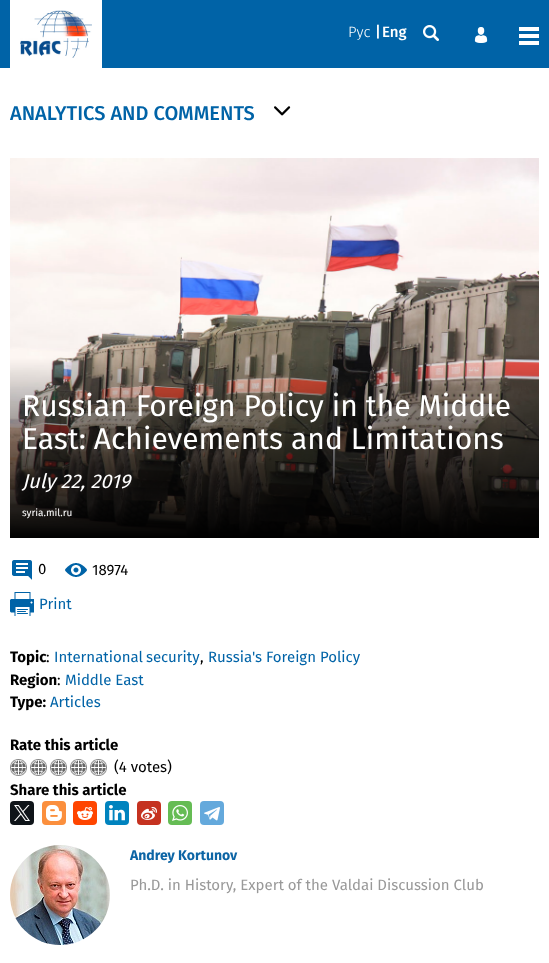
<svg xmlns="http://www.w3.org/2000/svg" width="549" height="963">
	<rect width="100%" height="100%" fill="#FFFFFF" />
	<rect x="0" y="0" width="549" height="68" fill="#0063A7" />
	<rect x="10" y="0" width="92" height="68" fill="#FFFFFF" />
	<image x="20" y="10" width="72" height="48" href="assets/img1.png" />
	<text x="348" y="37" font-family="Fira Sans" font-size="15" font-weight="300" fill="#FFFFFF">Рус</text>
	<g font-family="Fira Sans" font-size="15" font-weight="500" fill="#FFFFFF">
		<text x="375" y="37">|</text>
		<text x="382" y="37">Eng</text>
	</g>
	<image x="423" y="25" width="16" height="16" href="assets/img2.png" />
	<image x="474" y="27" width="14" height="16" href="assets/img3.png" />
	<rect x="519" y="34" width="20" height="4" fill="#FFFFFF" />
	<rect x="519" y="27" width="20" height="4" fill="#FFFFFF" />
	<rect x="519" y="41" width="20" height="4" fill="#FFFFFF" />
	<text x="10" y="120" font-family="Fira Sans" font-size="20" font-weight="500" fill="#0063A7">ANALYTICS AND COMMENTS</text>
	<image x="274" y="106" width="17" height="10" href="assets/img4.png" />
	<image x="10" y="158" width="529" height="380" href="assets/img5.png" />
	<g font-family="Fira Sans" font-size="30" fill="#FFFFFF">
		<text x="22" y="416">Russian Foreign Policy in the Middle</text>
		<text x="22" y="449">East: Achievements and Limitations</text>
	</g>
	<text x="22" y="488" font-family="Fira Sans" font-size="20" font-style="italic" fill="#FFFFFF">July 22, 2019</text>
	<text x="22" y="516" font-family="Fira Sans" font-size="10" fill="#FFFFFF">syria.mil.ru</text>
	<image x="12" y="560" width="20" height="20" href="assets/img6.png" />
	<text x="38" y="574" font-family="Fira Sans" font-size="15" fill="#000000">0</text>
	<image x="65" y="563" width="22" height="14" href="assets/img7.png" />
	<text x="92" y="575" font-family="Fira Sans" font-size="15" fill="#000000">18974</text>
	<image x="10" y="592" width="24" height="24" href="assets/img8.png" />
	<text x="39" y="609" font-family="Fira Sans" font-size="15" fill="#0063A7">Print</text>
	<text x="10" y="662" font-family="Fira Sans" font-size="15" font-weight="700" fill="#000000">Topic</text>
	<text x="46" y="662" font-family="Fira Sans" font-size="15" fill="#000000">:</text>
	<text x="54" y="662" word-spacing="-1" font-family="Fira Sans" font-size="15" fill="#0063A7">International security</text>
	<text x="200" y="662" font-family="Fira Sans" font-size="15" fill="#000000">,</text>
	<text x="208" y="662" font-family="Fira Sans" font-size="15" fill="#0063A7">Russia's Foreign Policy</text>
	<text x="10" y="685" font-family="Fira Sans" font-size="15" font-weight="700" fill="#000000">Region</text>
	<text x="57" y="685" font-family="Fira Sans" font-size="15" fill="#000000">:</text>
	<text x="65" y="685" font-family="Fira Sans" font-size="15" fill="#0063A7">Middle East</text>
	<text x="10" y="707" font-family="Fira Sans" font-size="15" font-weight="700" fill="#000000">Type:</text>
	<text x="50" y="707" font-family="Fira Sans" font-size="15" fill="#0063A7">Articles</text>
	<text x="10" y="750" font-family="Fira Sans" font-size="15" font-weight="700" fill="#000000">Rate this article</text>
	<image x="10" y="759" width="17" height="17" href="assets/img9.png" />
	<image x="30" y="759" width="17" height="17" href="assets/img9.png" />
	<image x="50" y="759" width="17" height="17" href="assets/img9.png" />
	<image x="70" y="759" width="17" height="17" href="assets/img9.png" />
	<image x="90" y="759" width="17" height="17" href="assets/img9.png" />
	<text x="114" y="772" font-family="Fira Sans" font-size="15" fill="#000000">(4 votes)</text>
	<text x="10" y="795" font-family="Fira Sans" font-size="15" font-weight="700" fill="#000000">Share this article</text>
	<rect x="10" y="801" width="24" height="24" rx="4" fill="#0F1419" />
	<image x="14" y="805" width="16" height="16" href="assets/img10.png" />
	<rect x="42" y="801" width="24" height="24" rx="4" fill="#FB8F3D" />
	<image x="46" y="805" width="16" height="16" href="assets/img11.png" />
	<rect x="73" y="801" width="24" height="24" rx="4" fill="#FF4500" />
	<image x="77" y="807" width="16" height="13" href="assets/img12.png" />
	<rect x="105" y="801" width="24" height="24" rx="4" fill="#0083BE" />
	<image x="109" y="805" width="16" height="16" href="assets/img13.png" />
	<rect x="137" y="801" width="24" height="24" rx="4" fill="#C53220" />
	<image x="141" y="807" width="16" height="13" href="assets/img14.png" />
	<rect x="168" y="801" width="24" height="24" rx="4" fill="#65BC54" />
	<image x="172" y="805" width="16" height="16" href="assets/img15.png" />
	<rect x="200" y="801" width="24" height="24" rx="4" fill="#64A9DC" />
	<image x="204" y="807" width="16" height="14" href="assets/img16.png" />
	<image x="10" y="845" width="100" height="100" href="assets/img17.png" />
	<text x="130" y="860" font-family="Fira Sans" font-size="14" font-weight="700" fill="#0D65A5">Andrey Kortunov</text>
	<text x="130" y="890" font-family="Fira Sans" font-size="15" fill="#999999">Ph.D. in History, Expert of the Valdai Discussion Club</text>
</svg>
